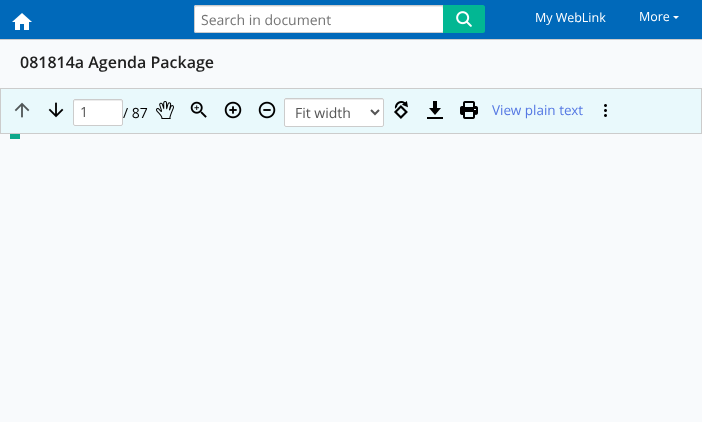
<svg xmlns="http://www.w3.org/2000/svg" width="702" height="422">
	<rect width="100%" height="100%" fill="#F8FAFC" />
	<rect x="0" y="0" width="702" height="39" fill="#0069BA" />
	<rect x="0" y="39" width="702" height="1" fill="#CCCCCC" />
	<image x="12" y="13" width="20" height="17" href="assets/img1.png" />
	<rect x="194" y="5" width="250" height="28" rx="2" fill="#FFFFFF" />
	<path d="M196 7H442L443 9V7C443 6 443 6 442 6H196C195 6 195 6 195 7V8Z" fill="#ECECEC" />
	<rect x="194.5" y="5.5" width="249" height="27" rx="1.5" fill="none" stroke="#CCCCCC" />
	<text x="201" y="25" font-family="Open Sans" font-size="14" fill="#757575">Search in document</text>
	<path d="M443 5H483C484 5 485 6 485 7V31C485 32 484 33 483 33H443Z" fill="#02B793" />
	<image x="456" y="11" width="16" height="16" href="assets/img2.png" />
	<g font-family="Open Sans" font-size="12.5" fill="#FFFFFF">
		<text x="535" y="22">My WebLink</text>
		<text x="639" y="21">More</text>
	</g>
	<path d="M673 16H679L676 19Z" fill="#FFFFFF" />
	<rect x="0" y="88" width="702" height="1" fill="#CCCCCC" />
	<text x="20" y="68" font-family="Open Sans" font-size="16" font-weight="600" fill="#202020">081814a Agenda Package</text>
	<rect x="1" y="89" width="700" height="44" fill="#E9F9FC" />
	<rect x="701" y="89" width="1" height="45" fill="#CCCCCC" />
	<rect x="0" y="133" width="702" height="1" fill="#CCCCCC" />
	<rect x="0" y="89" width="1" height="45" fill="#CCCCCC" />
	<image x="14" y="102" width="16" height="16" href="assets/img3.png" />
	<image x="48" y="102" width="16" height="16" href="assets/img4.png" />
	<rect x="73" y="99" width="50" height="27" rx="2" fill="#FFFFFF" />
	<path d="M75 101H116C122 101 122 100 122 106C122 98 123 100 113 100H83C79 100 74 98 74 102Z" fill="#ECECEC" />
	<rect x="73.5" y="99.5" width="49" height="26" rx="1.5" fill="none" stroke="#CCCCCC" />
	<text x="80" y="117" font-family="Open Sans" font-size="14" fill="#555555">1</text>
	<text x="123" y="118" font-family="Open Sans" font-size="14" fill="#000000">/ 87</text>
	<image x="156" y="101" width="18" height="18" href="assets/img5.png" />
	<image x="190" y="101" width="17" height="17" href="assets/img6.png" />
	<image x="224" y="101" width="18" height="18" href="assets/img7.png" />
	<image x="258" y="101" width="18" height="18" href="assets/img8.png" />
	<rect x="284" y="98" width="100" height="29" rx="2" fill="#FFFFFF" />
	<path d="M286 100H382C383 100 383 100 383 101C383 100 383 99 382 99H286C285 99 285 100 285 101C285 100 285 100 286 100Z" fill="#ECECEC" />
	<rect x="284.5" y="98.5" width="99" height="28" rx="1.5" fill="none" stroke="#CCCCCC" />
	<path d="M371 110L375 114L379 110" fill="none" stroke="#555555" stroke-width="2" />
	<text x="295" y="118" font-family="Open Sans" font-size="14" fill="#555555">Fit width</text>
	<image x="394" y="101" width="14" height="18" href="assets/img9.png" />
	<image x="427" y="101" width="16" height="18" href="assets/img10.png" />
	<image x="460" y="101" width="18" height="18" href="assets/img11.png" />
	<text x="492" y="115" font-family="Open Sans" font-size="13.5" fill="#5578E3">View plain text</text>
	<image x="604" y="104" width="3" height="13" href="assets/img12.png" />
	<rect x="10" y="134" width="10" height="5" fill="#0DA88B" />
</svg>
